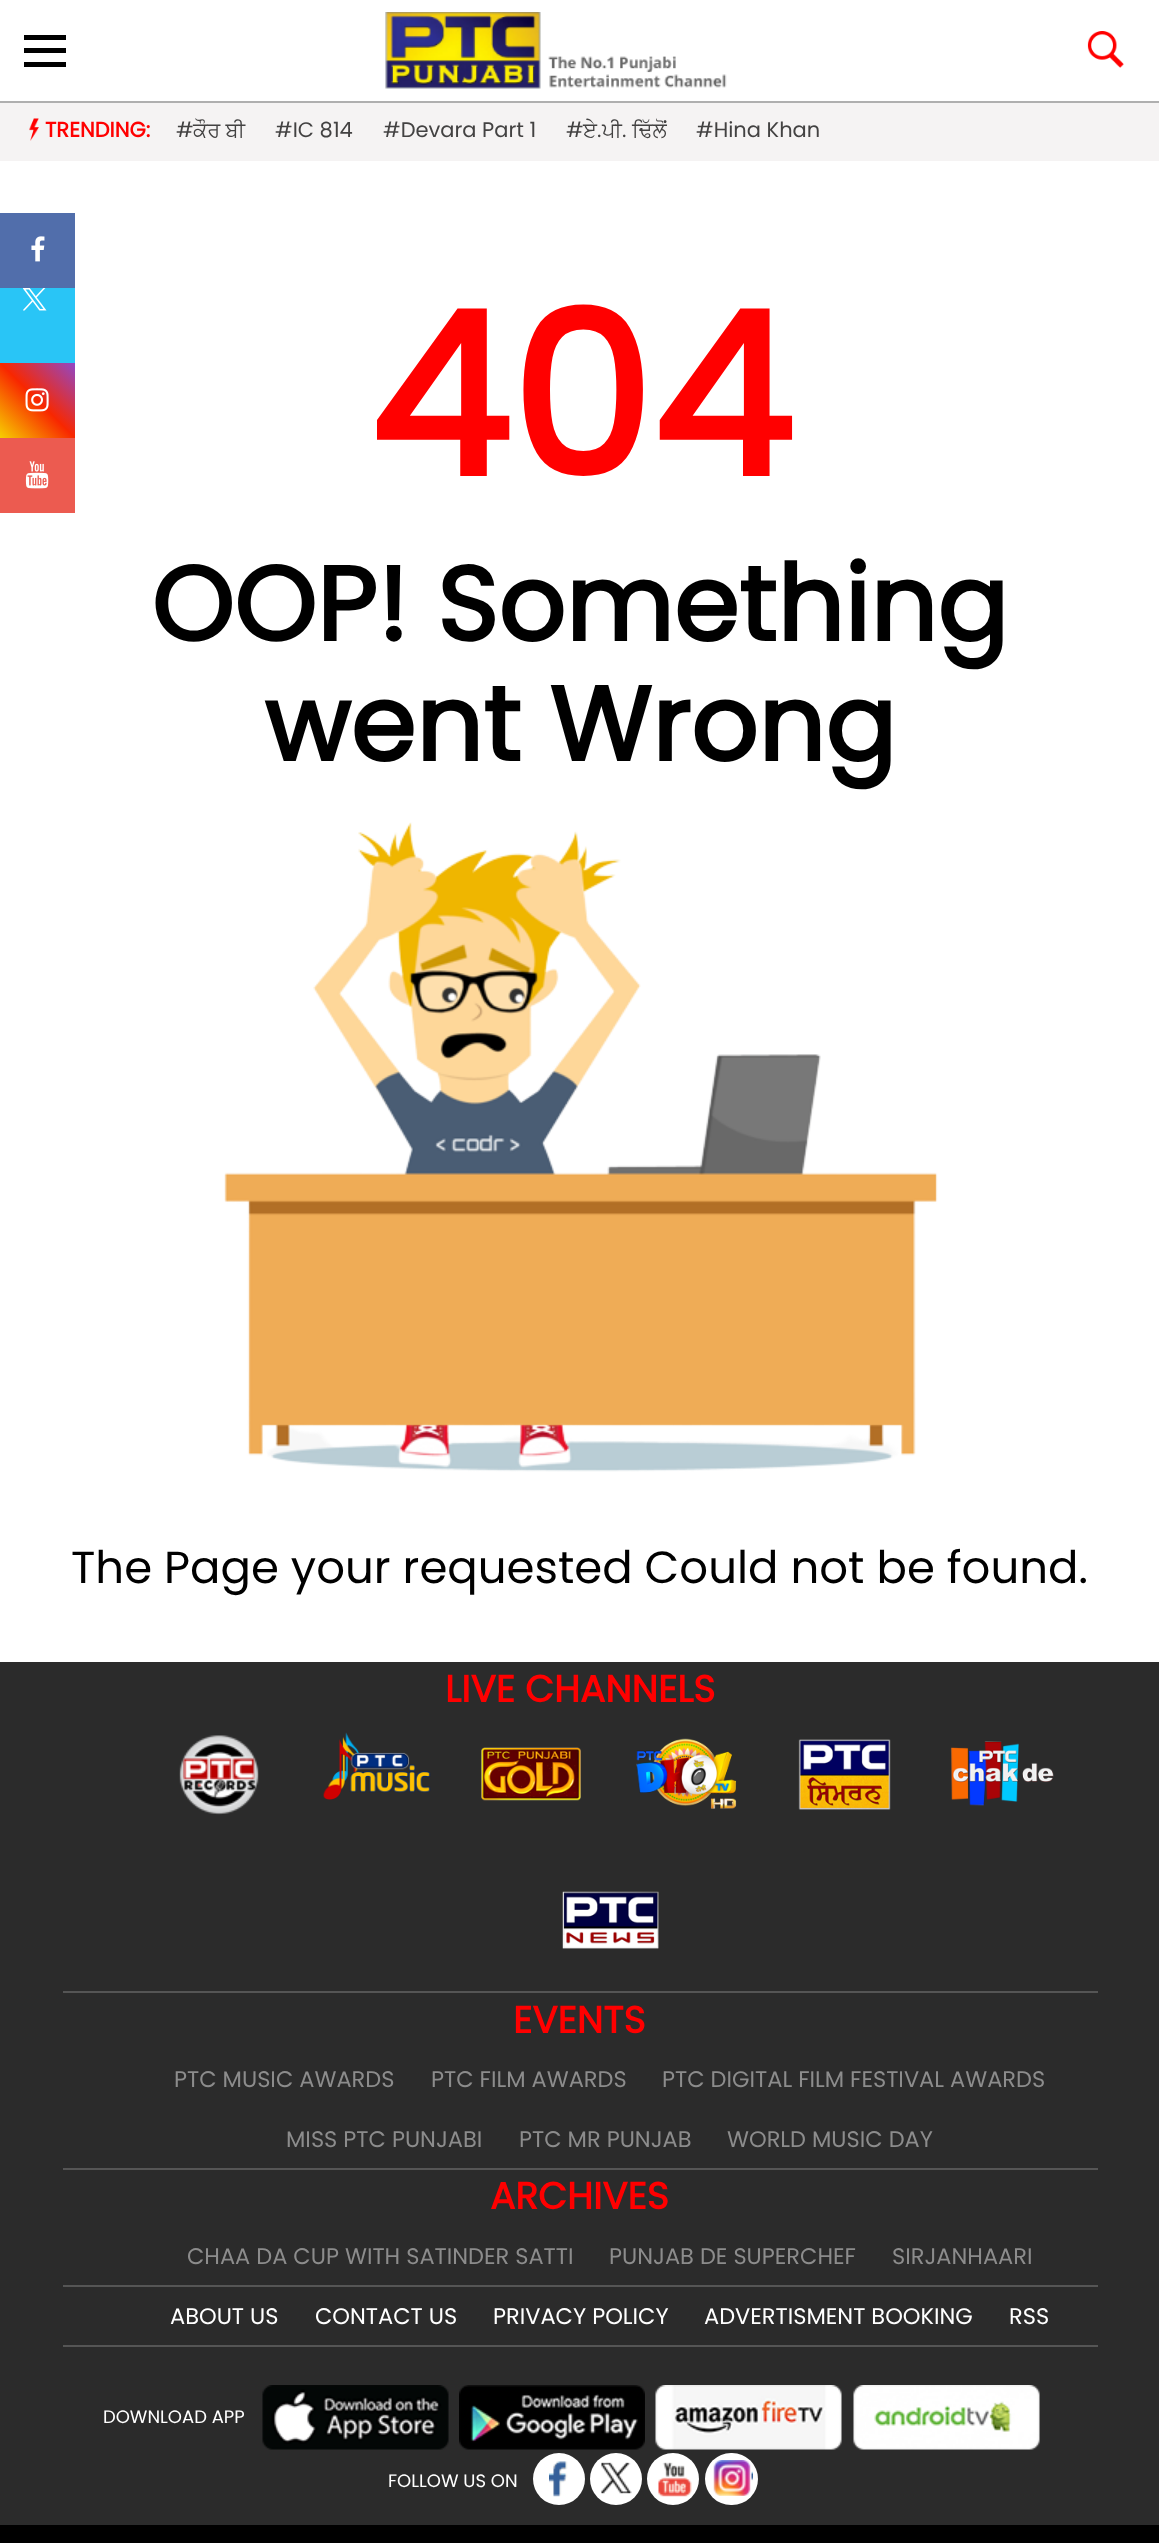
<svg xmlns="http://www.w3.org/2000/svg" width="1159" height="2543">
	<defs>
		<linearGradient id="g1" gradientUnits="userSpaceOnUse" x1="0" y1="438" x2="75" y2="363"><stop offset="0" stop-color="#F7CE00" /><stop offset="0.5" stop-color="#F82700" /><stop offset="1" stop-color="#9148C6" /></linearGradient>
	</defs>
	<rect width="100%" height="100%" fill="#FFFFFF" />
	<rect x="24" y="35" width="42" height="5" fill="#000000" />
	<rect x="24" y="48" width="42" height="5" fill="#000000" />
	<rect x="24" y="62" width="42" height="5" fill="#000000" />
	<image x="385" y="12" width="342" height="77" href="assets/img1.png" />
	<image x="1087" y="31" width="37" height="37" href="assets/img2.png" />
	<rect x="0" y="103" width="1159" height="58" fill="#F5F3F3" />
	<rect x="0" y="101" width="1159" height="2" fill="#AFAFAF" />
	<image x="29" y="118" width="10" height="23" href="assets/img3.png" />
	<text x="45" y="137" font-family="Poppins" font-size="21" font-weight="700" fill="#FF0000">TRENDING:</text>
	<text x="176" y="137" font-family="Poppins" font-size="21" fill="#434242">#</text>
	<text x="193" y="137" font-family="FreeSans" font-size="21" fill="#434242">ਕੌਰ ਬੀ</text>
	<g font-family="Poppins" font-size="21" fill="#434242">
		<text x="275" y="137">#IC 814</text>
		<text x="383" y="137">#Devara Part 1</text>
		<text x="566" y="137">#</text>
	</g>
	<text x="583" y="137" font-family="FreeSans" font-size="21" fill="#434242">ਏ</text>
	<text x="597" y="137" font-family="Poppins" font-size="21" fill="#434242">.</text>
	<text x="602" y="137" font-family="FreeSans" font-size="21" fill="#434242">ਪੀ</text>
	<text x="622" y="137" font-family="Poppins" font-size="21" fill="#434242">.</text>
	<text x="632" y="137" font-family="FreeSans" font-size="21" fill="#434242">ਢਿੱਲੋਂ</text>
	<text x="696" y="137" font-family="Poppins" font-size="21" fill="#434242">#Hina Khan</text>
	<rect x="0" y="213" width="75" height="75" fill="#516EAB" />
	<image x="31" y="236" width="14" height="26" href="assets/img4.png" />
	<rect x="0" y="288" width="75" height="75" fill="#29C5F6" />
	<image x="23" y="288" width="24" height="23" href="assets/img5.png" />
	<rect x="0" y="363" width="75" height="75" fill="url(#g1)" />
	<image x="25" y="388" width="24" height="24" href="assets/img6.png" />
	<rect x="0" y="438" width="75" height="75" fill="#EC5B50" />
	<image x="25" y="461" width="24" height="28" href="assets/img7.png" />
	<text x="368" y="476" font-family="Poppins" font-size="225" font-weight="700" fill="#FF0000">404</text>
	<g font-family="Poppins" font-size="105" font-weight="700" fill="#000000">
		<text x="151" y="641">OOP! Something</text>
		<text x="264" y="761">went Wrong</text>
	</g>
	<image x="224" y="822" width="714" height="650" href="assets/img8.png" />
	<text x="71" y="1583" font-family="Poppins" font-size="45" fill="#000000">The Page your requested Could not be found.</text>
	<rect x="0" y="1662" width="1159" height="863" fill="#2B2B2B" />
	<text x="445" y="1702" font-family="Poppins" font-size="37.5" font-weight="700" fill="#FF0000">LIVE CHANNELS</text>
	<rect x="63" y="1991" width="1035" height="2" fill="#555555" />
	<image x="179" y="1735" width="80" height="80" href="assets/img9.png" />
	<image x="323" y="1732" width="108" height="68" href="assets/img10.png" />
	<image x="481" y="1747" width="100" height="54" href="assets/img11.png" />
	<image x="636" y="1738" width="101" height="71" href="assets/img12.png" />
	<image x="798" y="1739" width="93" height="71" href="assets/img13.png" />
	<image x="950" y="1741" width="104" height="65" href="assets/img14.png" />
	<image x="562" y="1891" width="97" height="58" href="assets/img15.png" />
	<text x="513" y="2033" font-family="Poppins" font-size="37.5" font-weight="700" fill="#FF0000">EVENTS</text>
	<rect x="63" y="2168" width="1035" height="2" fill="#555555" />
	<g font-family="Poppins" font-size="22.5" fill="#8C8C8C">
		<text x="174" y="2087">PTC MUSIC AWARDS</text>
		<text x="431" y="2087">PTC FILM AWARDS</text>
		<text x="662" y="2087">PTC DIGITAL FILM FESTIVAL AWARDS</text>
		<text x="286" y="2147">MISS PTC PUNJABI</text>
		<text x="519" y="2147">PTC MR PUNJAB</text>
		<text x="727" y="2147">WORLD MUSIC DAY</text>
	</g>
	<text x="490" y="2209" font-family="Poppins" font-size="37.5" font-weight="700" fill="#FF0000">ARCHIVES</text>
	<rect x="63" y="2285" width="1035" height="2" fill="#555555" />
	<g font-family="Poppins" font-size="22.5" fill="#8C8C8C">
		<text x="187" y="2264">CHAA DA CUP WITH SATINDER SATTI</text>
		<text x="609" y="2264">PUNJAB DE SUPERCHEF</text>
		<text x="892" y="2264">SIRJANHAARI</text>
	</g>
	<rect x="63" y="2345" width="1035" height="2" fill="#555555" />
	<g font-family="Poppins" font-size="22.5" fill="#FFFFFF">
		<text x="170" y="2324">ABOUT US</text>
		<text x="315" y="2324">CONTACT US</text>
		<text x="493" y="2324">PRIVACY POLICY</text>
		<text x="704" y="2324">ADVERTISMENT BOOKING</text>
		<text x="1009" y="2324">RSS</text>
	</g>
	<text x="103" y="2423" font-family="Poppins" font-size="18" fill="#FFFFFF">DOWNLOAD APP</text>
	<image x="262" y="2385" width="187" height="65" href="assets/img16.png" />
	<image x="459" y="2385" width="186" height="65" href="assets/img17.png" />
	<image x="655" y="2385" width="187" height="65" href="assets/img18.png" />
	<image x="853" y="2385" width="187" height="65" href="assets/img19.png" />
	<text x="388" y="2487" font-family="Poppins" font-size="18" fill="#FFFFFF">FOLLOW US ON</text>
	<circle cx="559" cy="2479" r="26" fill="#FFFFFF" />
	<image x="549" y="2461" width="19" height="36" href="assets/img20.png" />
	<circle cx="616" cy="2479" r="26" fill="#FFFFFF" />
	<image x="601" y="2462" width="31" height="32" href="assets/img21.png" />
	<circle cx="673" cy="2479" r="26" fill="#FFFFFF" />
	<image x="658" y="2462" width="34" height="35" href="assets/img22.png" />
	<rect x="705" y="2453" width="53" height="52" rx="26" fill="#FFFFFF" />
	<image x="713" y="2460" width="40" height="36" href="assets/img23.png" />
	<rect x="0" y="2525" width="1159" height="18" fill="#000000" />
</svg>
